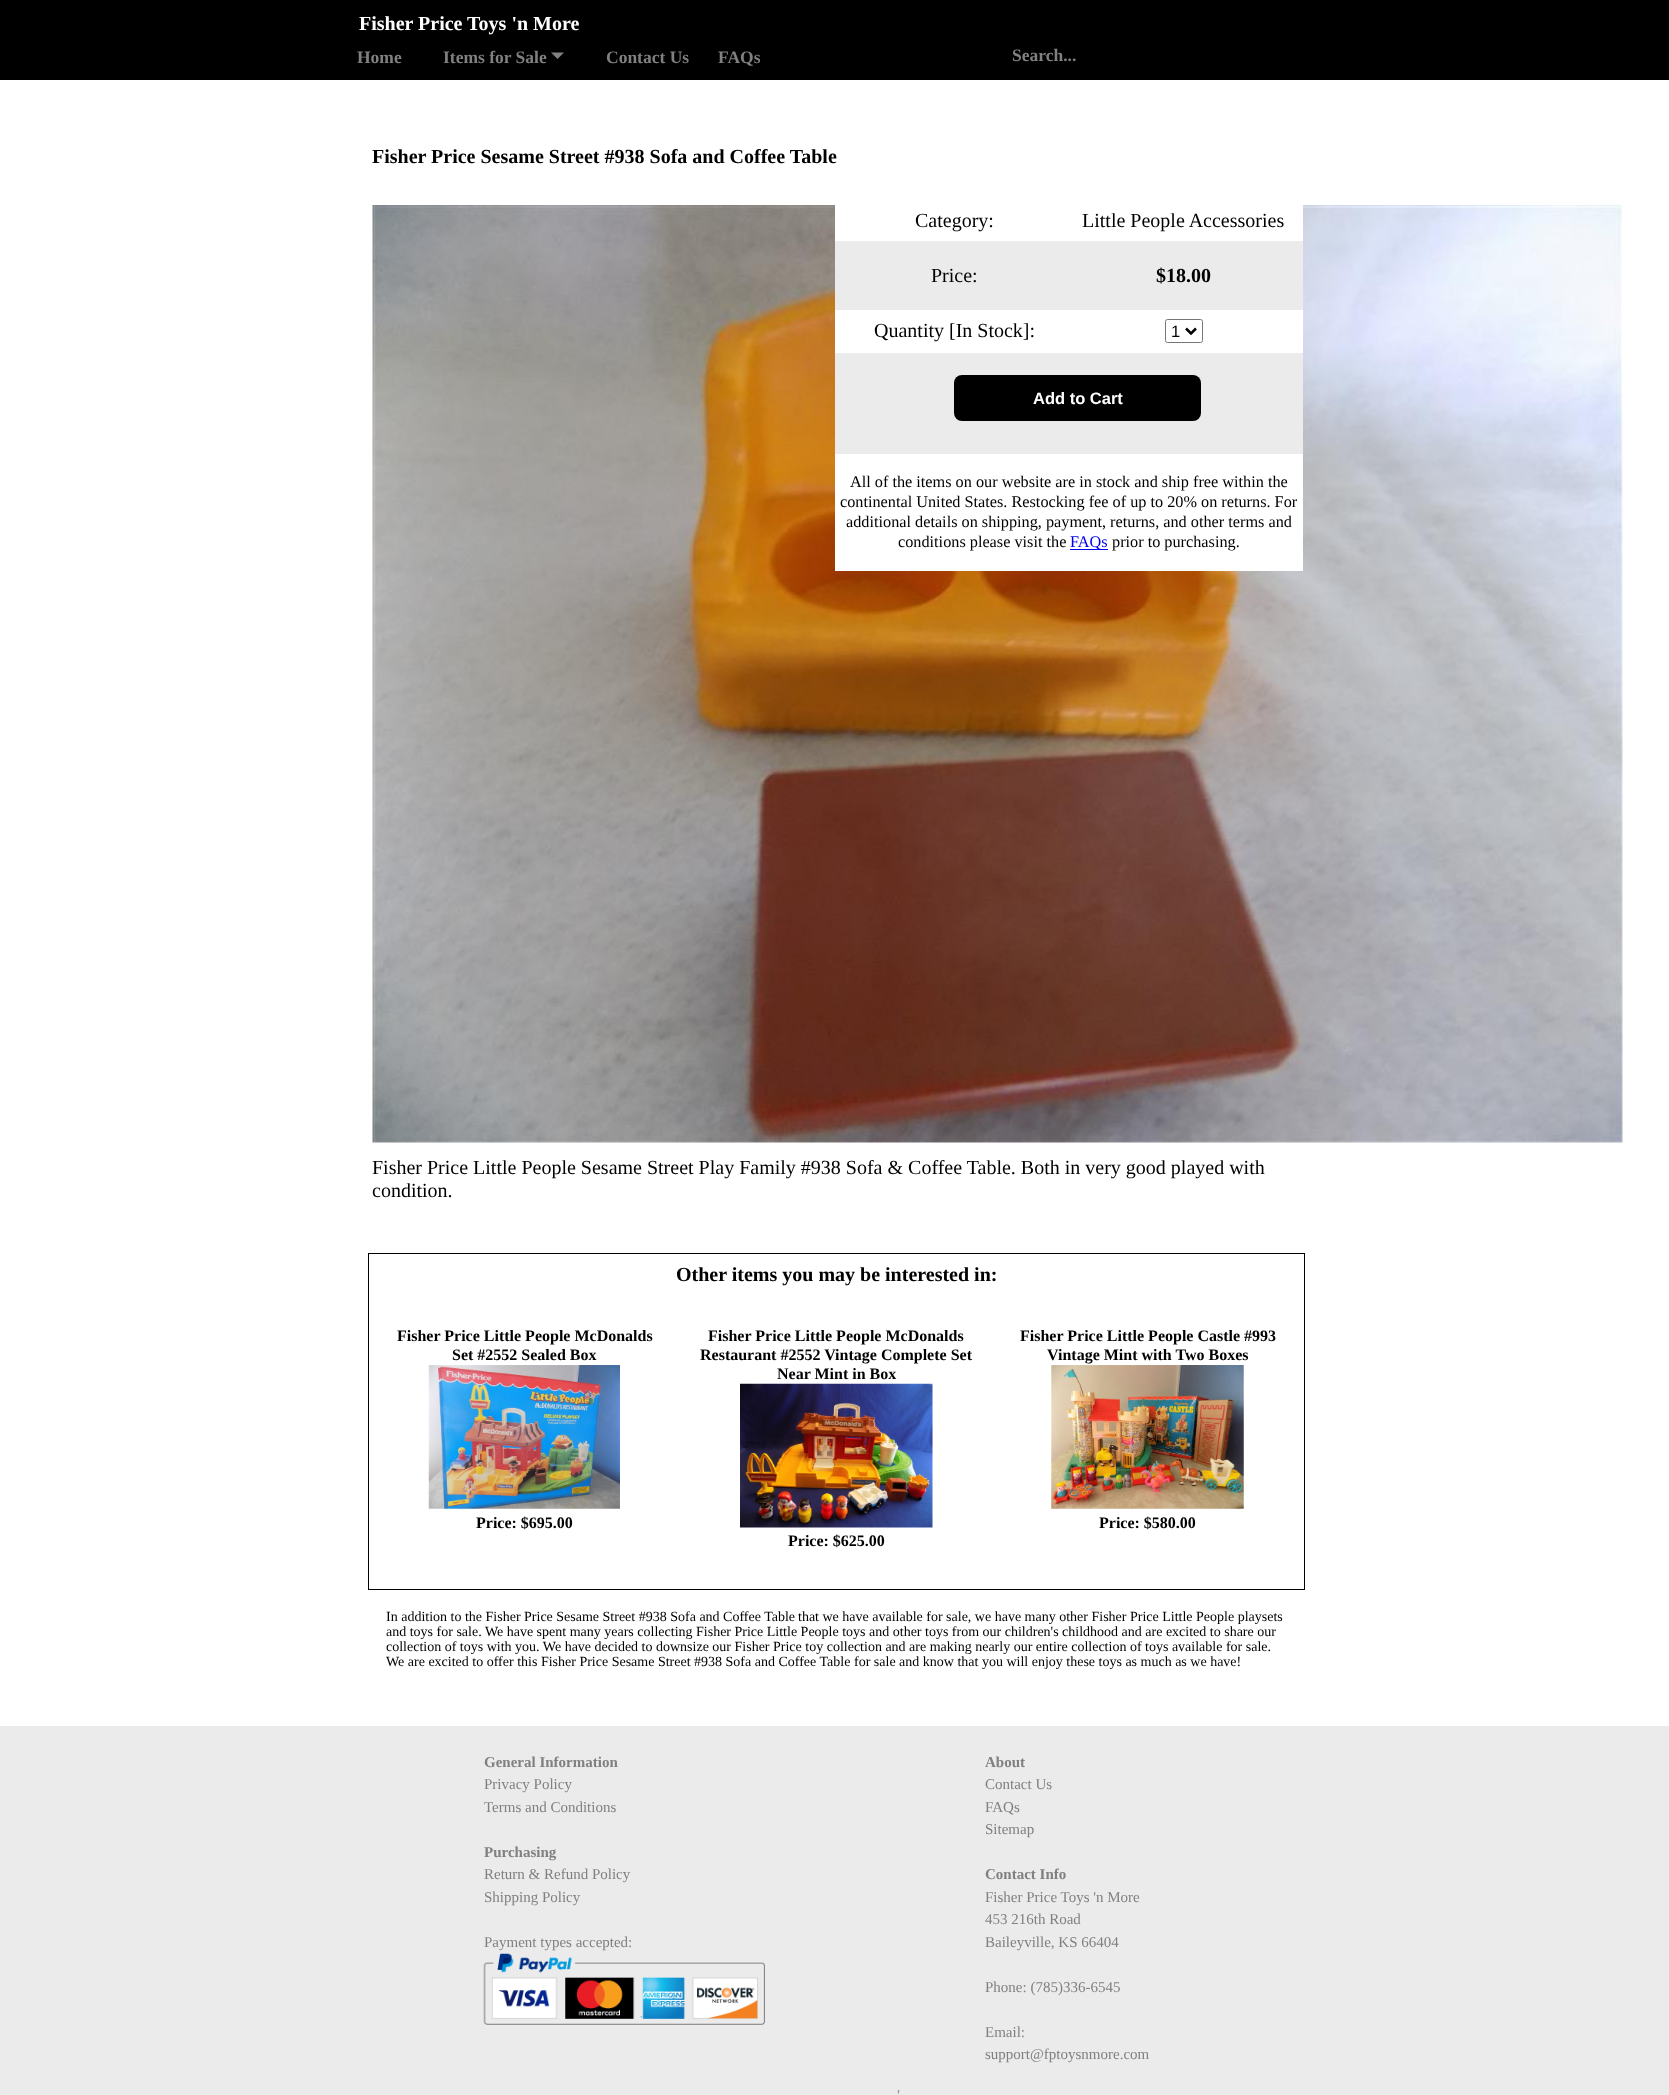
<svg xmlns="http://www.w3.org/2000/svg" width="1669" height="2095">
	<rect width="100%" height="100%" fill="#FFFFFF" />
	<rect x="0" y="0" width="1669" height="80" fill="#000000" />
	<text x="359" y="30" font-family="Liberation Serif" font-size="20" font-weight="700" fill="#FFFFFF">Fisher Price Toys 'n More</text>
	<g font-family="Liberation Serif" font-size="17.5" font-weight="700" fill="#808080">
		<text x="357" y="63">Home</text>
		<text x="443" y="63">Items for Sale</text>
	</g>
	<path d="M551 52.5H564L557.5 59Z" fill="#808080" />
	<g font-family="Liberation Serif" font-size="17.5" font-weight="700" fill="#808080">
		<text x="606" y="63">Contact Us</text>
		<text x="718" y="63">FAQs</text>
		<text x="1012" y="61">Search...</text>
	</g>
	<text x="372" y="163" font-family="Liberation Serif" font-size="20" font-weight="700" fill="#000000">Fisher Price Sesame Street #938 Sofa and Coffee Table</text>
	<image x="372" y="205" width="1251" height="938" href="assets/img1.png" />
	<rect x="835" y="205" width="468" height="36" fill="#FFFFFF" />
	<g font-family="Liberation Serif" font-size="20" fill="#000000">
		<text x="915" y="227">Category:</text>
		<text x="1082" y="227">Little People Accessories</text>
	</g>
	<rect x="835" y="241" width="468" height="69" fill="#EBEBEB" />
	<text x="931" y="282" font-family="Liberation Serif" font-size="20" fill="#000000">Price:</text>
	<text x="1156" y="282" font-family="Liberation Serif" font-size="20" font-weight="700" fill="#000000">$18.00</text>
	<rect x="835" y="310" width="468" height="43" fill="#FFFFFF" />
	<text x="874" y="337" font-family="Liberation Serif" font-size="20" fill="#000000">Quantity [In Stock]:</text>
	<rect x="1165.5" y="319.5" width="37" height="23" rx="2" fill="none" stroke="#767676" />
	<path d="M1186 328.5L1191 333.5L1196 328.5" fill="none" stroke="#000000" stroke-width="2.5" />
	<text x="1171" y="337" font-family="Liberation Sans" font-size="16.5" fill="#000000">1</text>
	<rect x="835" y="353" width="468" height="101" fill="#EBEBEB" />
	<rect x="954" y="375" width="247" height="46" rx="8" fill="#000000" />
	<text x="1033" y="404" font-family="Liberation Sans" font-size="16.5" font-weight="700" fill="#FFFFFF">Add to Cart</text>
	<rect x="835" y="454" width="468" height="117" fill="#FFFFFF" />
	<g font-family="Liberation Serif" font-size="16.25" fill="#000000">
		<text x="850" y="487">All of the items on our website are in stock and ship free within the</text>
		<text x="840" y="507">continental United States. Restocking fee of up to 20% on returns. For</text>
		<text x="846" y="527">additional details on shipping, payment, returns, and other terms and</text>
		<text x="898" y="547">conditions please visit the</text>
	</g>
	<rect x="1070" y="549" width="38" height="1" fill="#0000EE" />
	<text x="1070" y="547" font-family="Liberation Serif" font-size="16.25" fill="#0000EE">FAQs</text>
	<text x="1112" y="547" font-family="Liberation Serif" font-size="16.25" fill="#000000">prior to purchasing.</text>
	<g font-family="Liberation Serif" font-size="20" fill="#000000">
		<text x="372" y="1174">Fisher Price Little People Sesame Street Play Family #938 Sofa &amp; Coffee Table. Both in very good played with</text>
		<text x="372" y="1197">condition.</text>
	</g>
	<rect x="368.5" y="1253.5" width="936" height="336" fill="none" stroke="#000000" />
	<text x="676" y="1281" font-family="Liberation Serif" font-size="20" font-weight="700" fill="#000000">Other items you may be interested in:</text>
	<g font-family="Liberation Serif" font-size="16" font-weight="700" fill="#000000">
		<text x="397" y="1341">Fisher Price Little People McDonalds</text>
		<text x="452" y="1360">Set #2552 Sealed Box</text>
	</g>
	<image x="428" y="1365" width="192" height="144" href="assets/img2.png" />
	<g font-family="Liberation Serif" font-size="16" font-weight="700" fill="#000000">
		<text x="476" y="1528">Price: $695.00</text>
		<text x="708" y="1341">Fisher Price Little People McDonalds</text>
		<text x="700" y="1360">Restaurant #2552 Vintage Complete Set</text>
		<text x="777" y="1379">Near Mint in Box</text>
	</g>
	<image x="740" y="1383" width="193" height="145" href="assets/img3.png" />
	<g font-family="Liberation Serif" font-size="16" font-weight="700" fill="#000000">
		<text x="788" y="1546">Price: $625.00</text>
		<text x="1020" y="1341">Fisher Price Little People Castle #993</text>
		<text x="1047" y="1360">Vintage Mint with Two Boxes</text>
	</g>
	<image x="1051" y="1365" width="193" height="144" href="assets/img4.png" />
	<text x="1099" y="1528" font-family="Liberation Serif" font-size="16" font-weight="700" fill="#000000">Price: $580.00</text>
	<g font-family="Liberation Serif" font-size="14" fill="#000000">
		<text x="386" y="1621">In addition to the Fisher Price Sesame Street #938 Sofa and Coffee Table</text>
		<text x="798" y="1621">that we have available for sale, we have many other Fisher Price Little People playsets</text>
		<text x="386" y="1636">and toys for sale. We have spent many years collecting Fisher Price Little People toys and other toys from our children's childhood and are excited to share our</text>
		<text x="386" y="1651">collection of toys with you. We have decided to downsize our Fisher Price toy collection and are making nearly our entire collection of toys available for sale.</text>
		<text x="386" y="1666">We are excited to offer this Fisher Price Sesame Street #938 Sofa and Coffee Table</text>
		<text x="854" y="1666">for sale and know that you will enjoy these toys as much as we have!</text>
	</g>
	<rect x="0" y="1726" width="1669" height="369" fill="#EBEBEB" />
	<text x="484" y="1767" font-family="Liberation Serif" font-size="15" font-weight="700" fill="#808080">General Information</text>
	<g font-family="Liberation Serif" font-size="15" fill="#808080">
		<text x="484" y="1789">Privacy Policy</text>
		<text x="484" y="1812">Terms and Conditions</text>
	</g>
	<text x="484" y="1857" font-family="Liberation Serif" font-size="15" font-weight="700" fill="#808080">Purchasing</text>
	<g font-family="Liberation Serif" font-size="15" fill="#808080">
		<text x="484" y="1879">Return &amp; Refund Policy</text>
		<text x="484" y="1902">Shipping Policy</text>
		<text x="484" y="1947">Payment types accepted:</text>
	</g>
	<image x="483" y="1953" width="282" height="72" href="assets/img5.png" />
	<text x="985" y="1767" font-family="Liberation Serif" font-size="15" font-weight="700" fill="#808080">About</text>
	<g font-family="Liberation Serif" font-size="15" fill="#808080">
		<text x="985" y="1789">Contact Us</text>
		<text x="985" y="1812">FAQs</text>
		<text x="985" y="1834">Sitemap</text>
	</g>
	<text x="985" y="1879" font-family="Liberation Serif" font-size="15" font-weight="700" fill="#808080">Contact Info</text>
	<g font-family="Liberation Serif" font-size="15" fill="#808080">
		<text x="985" y="1902">Fisher Price Toys 'n More</text>
		<text x="985" y="1924">453 216th Road</text>
		<text x="985" y="1947">Baileyville, KS 66404</text>
		<text x="985" y="1992">Phone: (785)336-6545</text>
		<text x="985" y="2037">Email:</text>
		<text x="985" y="2059">support@fptoysnmore.com</text>
	</g>
	<text x="896" y="2100" font-family="Liberation Serif" font-size="15" font-style="italic" fill="#808080">'</text>
</svg>
